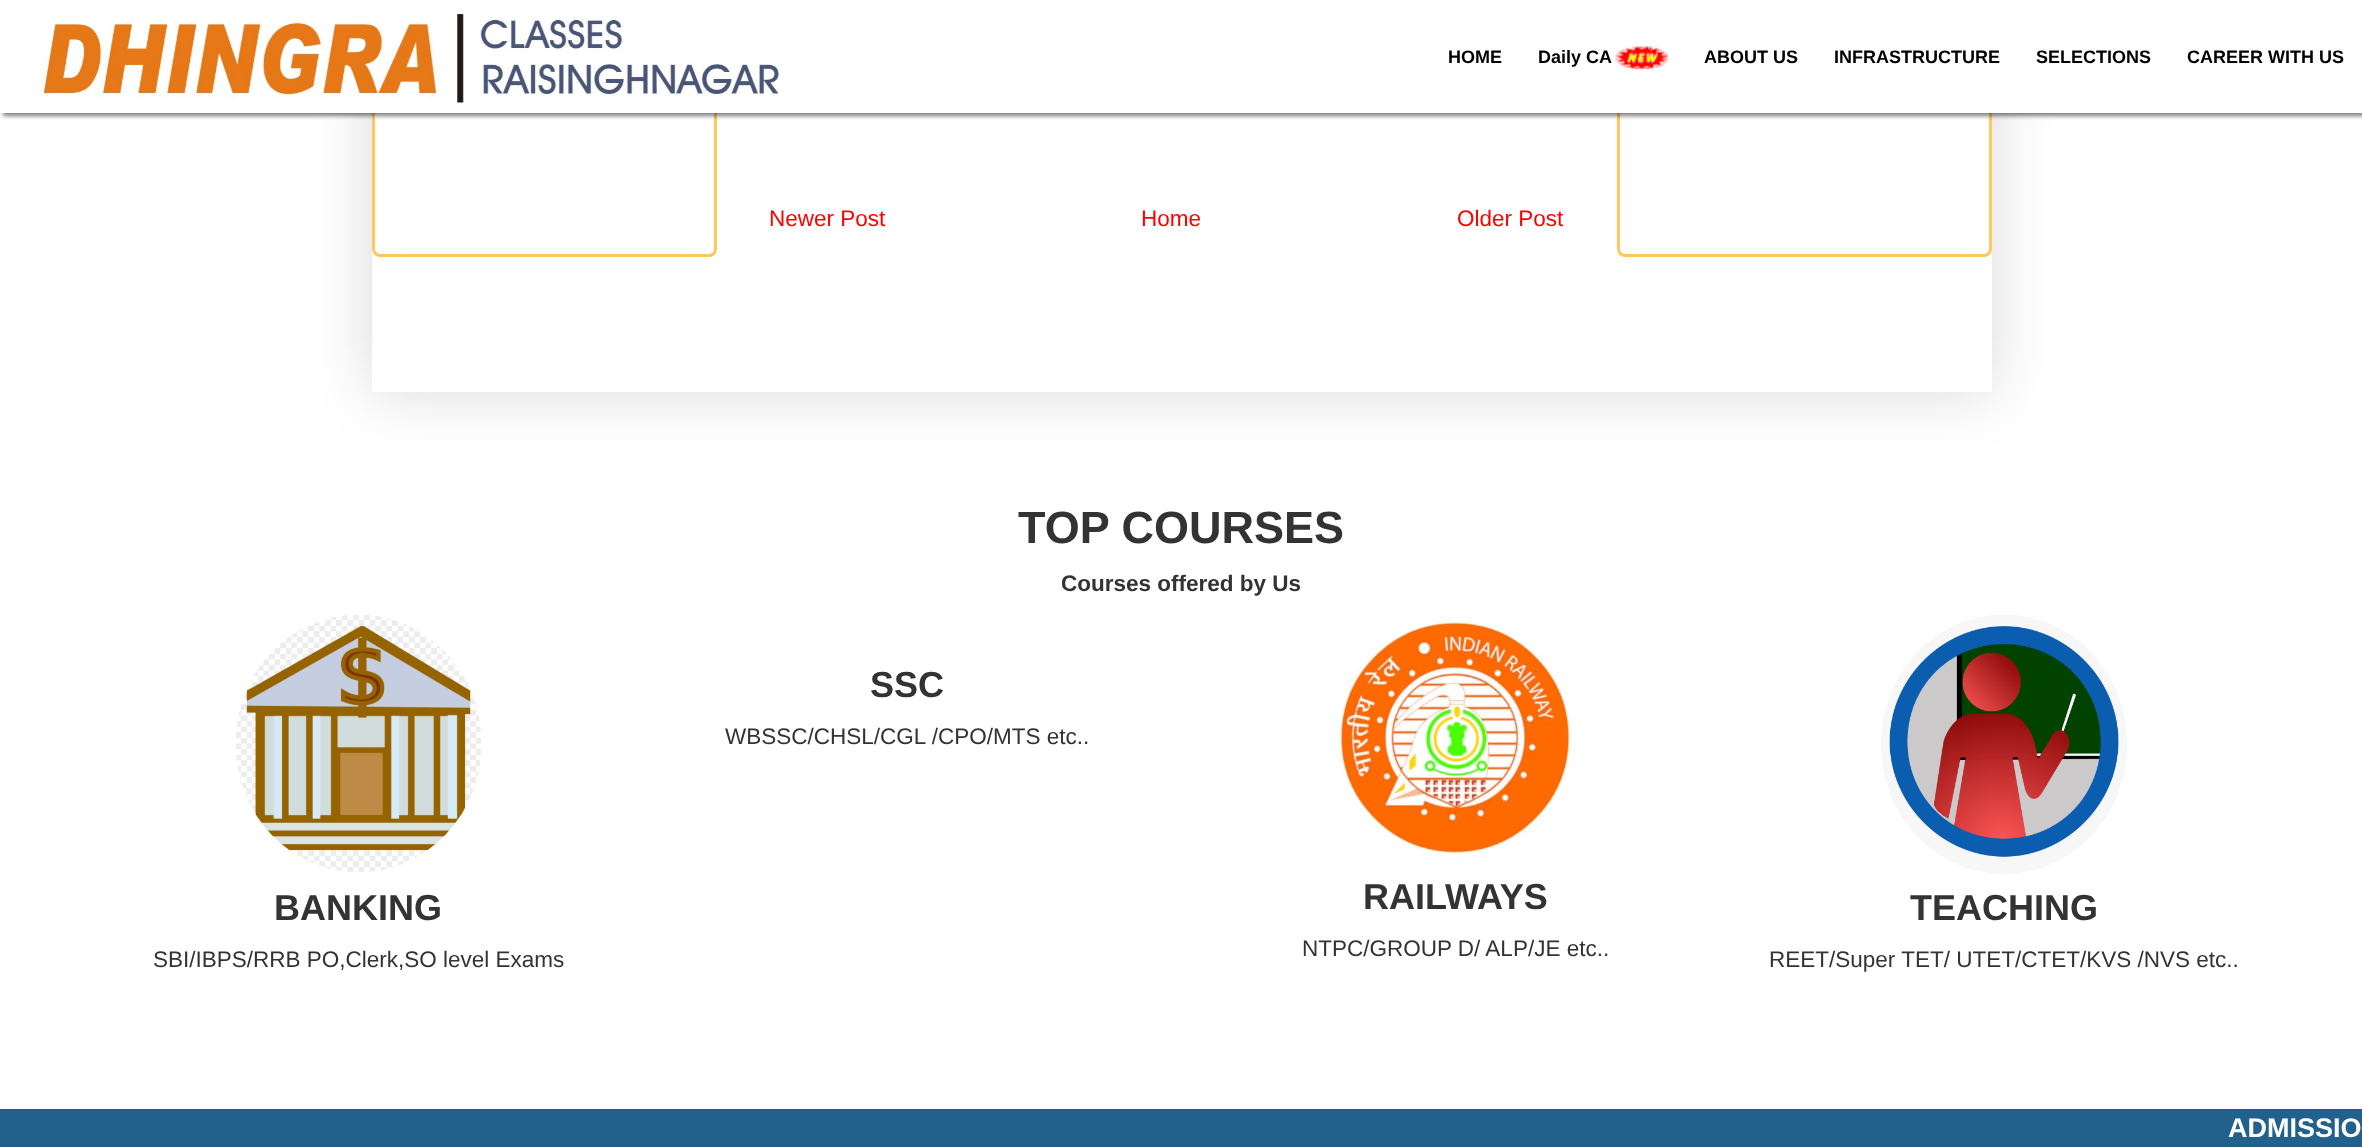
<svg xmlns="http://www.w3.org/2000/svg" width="2362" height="1147">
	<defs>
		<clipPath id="clip1"><path d="M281 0H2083V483H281ZM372-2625H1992V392H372Z" clip-rule="evenodd" /></clipPath>
	</defs>
	<rect width="100%" height="100%" fill="#FFFFFF" />
	<g clip-path="url(#clip1)">
		<rect x="372" y="-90" width="1620" height="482" fill="#000000" fill-opacity="0.15" filter="blur(30px)" />
	</g>
	<rect x="373.5" y="-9.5" width="342" height="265" rx="6.5" fill="none" stroke="#FFC75C" stroke-width="3" />
	<rect x="1618.5" y="-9.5" width="372" height="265" rx="6.5" fill="none" stroke="#FFC75C" stroke-width="3" />
	<rect x="3" y="3" width="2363" height="113" fill="#000000" fill-opacity="0.5" filter="blur(2px)" />
	<rect x="0" y="0" width="2362" height="113" fill="#FFFFFF" />
	<image x="41" y="13" width="738" height="91" href="assets/img1.png" />
	<g font-family="Liberation Sans" font-size="18" font-weight="700" fill="#000000">
		<text x="1448" y="63">HOME</text>
		<text x="1538" y="63">Daily CA</text>
	</g>
	<image x="1615" y="46" width="54" height="24" href="assets/img2.png" />
	<g font-family="Liberation Sans" font-size="18" font-weight="700" fill="#000000">
		<text x="1704" y="63">ABOUT US</text>
		<text x="1834" y="63">INFRASTRUCTURE</text>
		<text x="2036" y="63">SELECTIONS</text>
		<text x="2187" y="63">CAREER WITH US</text>
	</g>
	<g font-family="Liberation Sans" font-size="22.5" fill="#FF0000">
		<text x="769" y="226">Newer Post</text>
		<text x="1141" y="226">Home</text>
		<text x="1457" y="226">Older Post</text>
	</g>
	<text x="1018" y="543" font-family="Liberation Sans" font-size="45" font-weight="700" fill="#333333">TOP COURSES</text>
	<text x="1061" y="591" font-family="Liberation Sans" font-size="22.5" font-weight="700" fill="#333333">Courses offered by Us</text>
	<text x="870" y="697" font-family="Liberation Sans" font-size="36" font-weight="700" fill="#333333">SSC</text>
	<text x="725" y="744" font-family="Liberation Sans" font-size="22.5" fill="#333333">WBSSC/CHSL/CGL /CPO/MTS etc..</text>
	<image x="236" y="614" width="245" height="259" href="assets/img3.png" />
	<text x="274" y="920" font-family="Liberation Sans" font-size="36" font-weight="700" fill="#333333">BANKING</text>
	<text x="153" y="967" font-family="Liberation Sans" font-size="22.5" fill="#333333">SBI/IBPS/RRB PO,Clerk,SO level Exams</text>
	<image x="1333" y="616" width="244" height="244" href="assets/img4.png" />
	<text x="1363" y="909" font-family="Liberation Sans" font-size="36" font-weight="700" fill="#333333">RAILWAYS</text>
	<text x="1302" y="956" font-family="Liberation Sans" font-size="22.5" fill="#333333">NTPC/GROUP D/ ALP/JE etc..</text>
	<image x="1881" y="615" width="246" height="259" href="assets/img5.png" />
	<text x="1910" y="920" font-family="Liberation Sans" font-size="36" font-weight="700" fill="#333333">TEACHING</text>
	<text x="1769" y="967" font-family="Liberation Sans" font-size="22.5" fill="#333333">REET/Super TET/ UTET/CTET/KVS /NVS etc..</text>
	<rect x="0" y="1109" width="2362" height="38" fill="#21618C" />
	<text x="2228" y="1137" font-family="Liberation Sans" font-size="27" font-weight="700" fill="#FFFFFF">ADMISSIO</text>
</svg>
